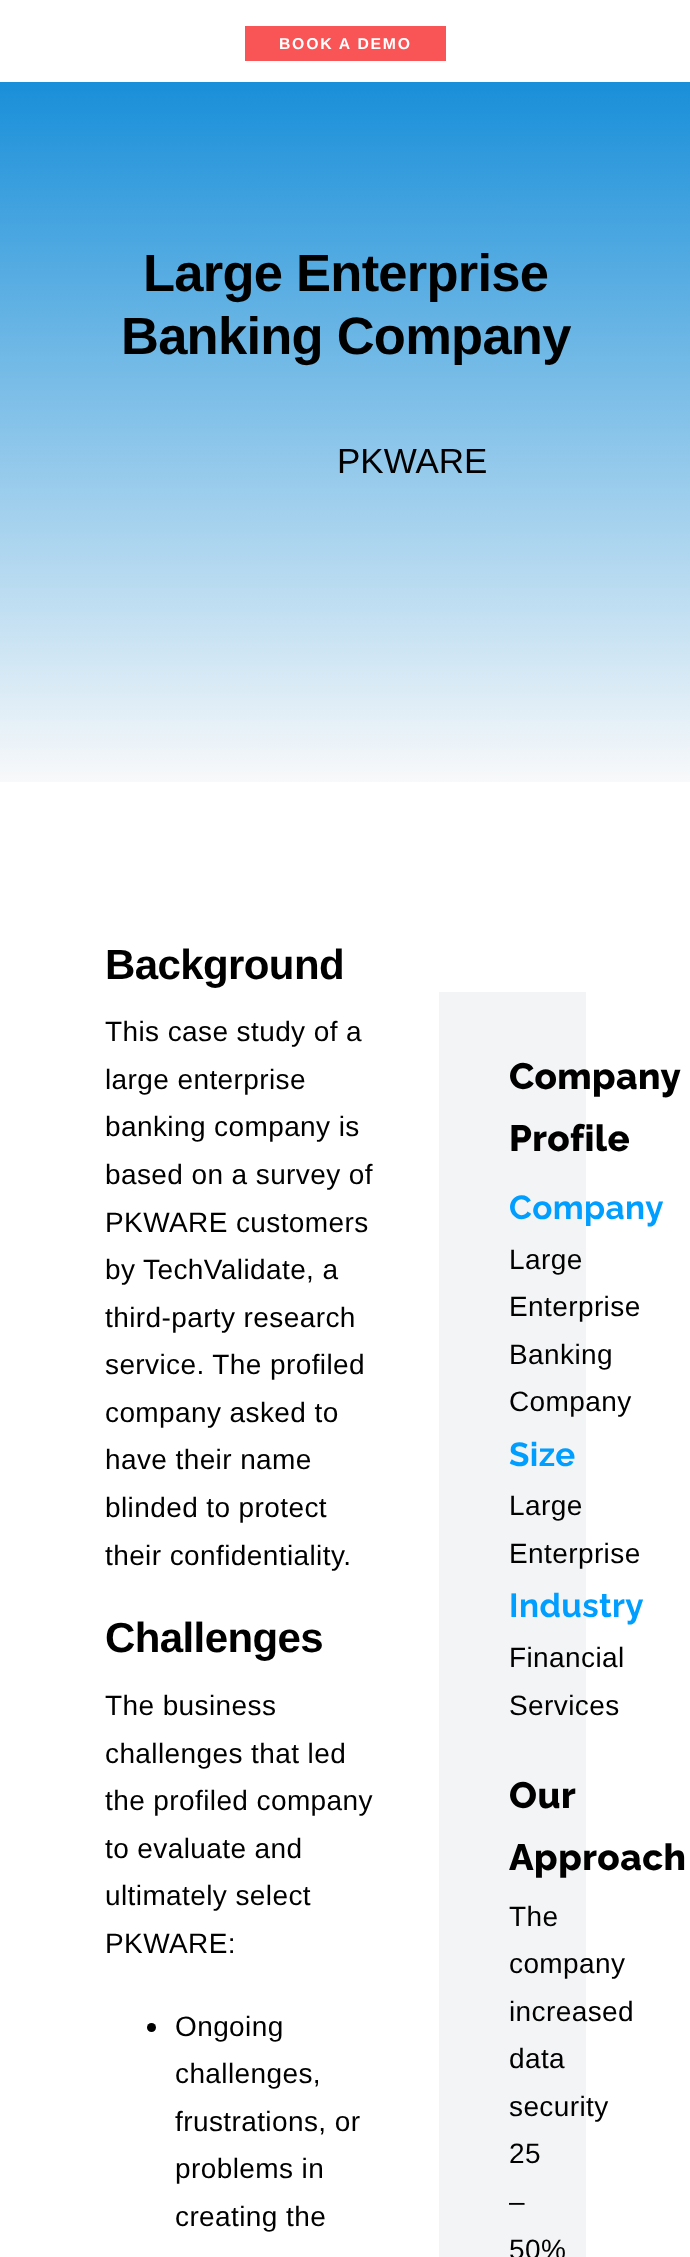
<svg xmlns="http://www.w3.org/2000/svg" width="690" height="2257">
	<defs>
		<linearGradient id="g1" gradientUnits="userSpaceOnUse" x1="346" y1="782" x2="346" y2="82"><stop offset="0" stop-color="#F8F9FA" /><stop offset="1" stop-color="#198FD9" /></linearGradient>
	</defs>
	<rect width="100%" height="100%" fill="#FFFFFF" />
	<rect x="245" y="26" width="201" height="35" fill="#F95557" />
	<text x="279" y="49" font-family="Liberation Sans" font-size="15.75" font-weight="700" letter-spacing="1.75" fill="#FFFFFF">BOOK A DEMO</text>
	<rect x="0" y="82" width="690" height="700" fill="url(#g1)" />
	<g font-family="Liberation Sans" font-size="52.5" font-weight="700" letter-spacing="-0.75" fill="#000000">
		<text x="143" y="291">Large Enterprise</text>
		<text x="121" y="354">Banking Company</text>
	</g>
	<text x="337" y="473" font-family="Liberation Sans" font-size="35" fill="#000000">PKWARE</text>
	<text x="105" y="979" font-family="Liberation Sans" font-size="42" font-weight="700" letter-spacing="-0.6" fill="#000000">Background</text>
	<g font-family="Liberation Sans" font-size="28" letter-spacing="0.4" fill="#000000">
		<text x="105" y="1041">This case study of a</text>
		<text x="105" y="1089">large enterprise</text>
		<text x="105" y="1136">banking company is</text>
		<text x="105" y="1184">based on a survey of</text>
		<text x="105" y="1232">PKWARE customers</text>
		<text x="105" y="1279">by TechValidate, a</text>
		<text x="105" y="1327">third-party research</text>
		<text x="105" y="1374">service. The profiled</text>
		<text x="105" y="1422">company asked to</text>
		<text x="105" y="1469">have their name</text>
		<text x="105" y="1517">blinded to protect</text>
		<text x="105" y="1565">their confidentiality.</text>
	</g>
	<text x="105" y="1652" font-family="Liberation Sans" font-size="42" font-weight="700" letter-spacing="-0.6" fill="#000000">Challenges</text>
	<g font-family="Liberation Sans" font-size="28" letter-spacing="0.4" fill="#000000">
		<text x="105" y="1715">The business</text>
		<text x="105" y="1763">challenges that led</text>
		<text x="105" y="1810">the profiled company</text>
		<text x="105" y="1858">to evaluate and</text>
		<text x="105" y="1905">ultimately select</text>
		<text x="105" y="1953">PKWARE:</text>
	</g>
	<circle cx="151.5" cy="2027.5" r="4.5" fill="#000000" />
	<g font-family="Liberation Sans" font-size="28" letter-spacing="0.4" fill="#000000">
		<text x="175" y="2036">Ongoing</text>
		<text x="175" y="2083">challenges,</text>
		<text x="175" y="2131">frustrations, or</text>
		<text x="175" y="2178">problems in</text>
		<text x="175" y="2226">creating the</text>
	</g>
	<rect x="439" y="992" width="147" height="1265" fill="#F3F4F5" />
	<g font-family="Raleway" font-size="36.75" font-weight="800" letter-spacing="0.4" fill="#000000">
		<text x="509" y="1089">Company</text>
		<text x="509" y="1151">Profile</text>
	</g>
	<text x="509" y="1219" font-family="Raleway" font-size="33.25" font-weight="700" letter-spacing="0.4" fill="#009EFF">Company</text>
	<g font-family="Liberation Sans" font-size="28" letter-spacing="0.4" fill="#000000">
		<text x="509" y="1269">Large</text>
		<text x="509" y="1316">Enterprise</text>
		<text x="509" y="1364">Banking</text>
		<text x="509" y="1411">Company</text>
	</g>
	<text x="509" y="1466" font-family="Raleway" font-size="33.25" font-weight="700" letter-spacing="0.4" fill="#009EFF">Size</text>
	<g font-family="Liberation Sans" font-size="28" letter-spacing="0.4" fill="#000000">
		<text x="509" y="1515">Large</text>
		<text x="509" y="1563">Enterprise</text>
	</g>
	<text x="509" y="1617" font-family="Raleway" font-size="33.25" font-weight="700" letter-spacing="0.4" fill="#009EFF">Industry</text>
	<g font-family="Liberation Sans" font-size="28" letter-spacing="0.4" fill="#000000">
		<text x="509" y="1667">Financial</text>
		<text x="509" y="1715">Services</text>
	</g>
	<g font-family="Raleway" font-size="36.75" font-weight="800" letter-spacing="0.5" fill="#000000">
		<text x="509" y="1808">Our</text>
		<text x="509" y="1870">Approach</text>
	</g>
	<g font-family="Liberation Sans" font-size="28" letter-spacing="0.4" fill="#000000">
		<text x="509" y="1926">The</text>
		<text x="509" y="1973">company</text>
		<text x="509" y="2021">increased</text>
		<text x="509" y="2068">data</text>
		<text x="509" y="2116">security</text>
		<text x="509" y="2163">25</text>
		<text x="509" y="2211">–</text>
		<text x="509" y="2259">50%</text>
	</g>
</svg>
